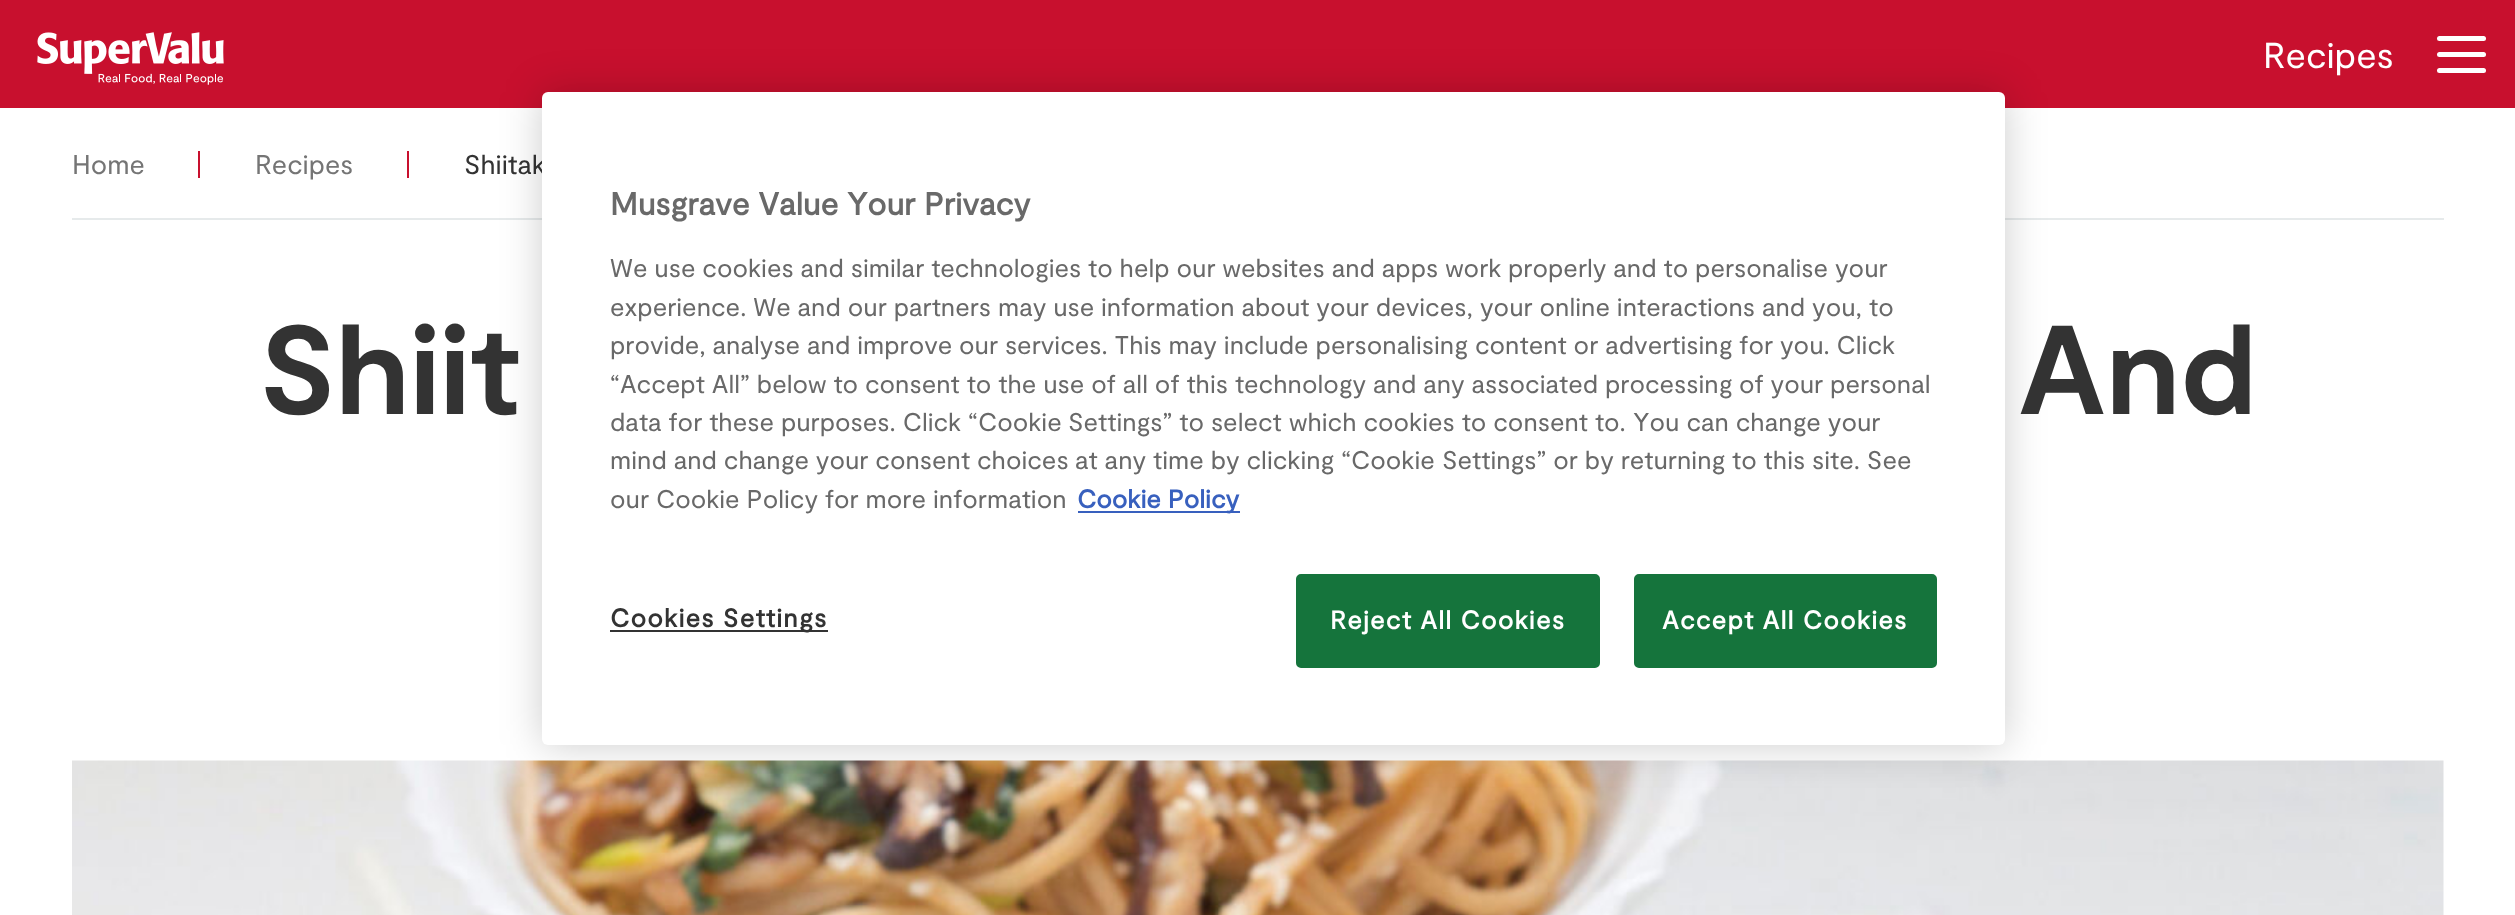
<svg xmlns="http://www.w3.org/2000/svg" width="2515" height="915">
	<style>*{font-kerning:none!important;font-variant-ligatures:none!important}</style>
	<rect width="100%" height="100%" fill="#FFFFFF" />
	<rect x="0" y="0" width="2515" height="108" fill="#C8102E" />
	<image x="37" y="32" width="187" height="53" href="assets/img1.png" />
	<text x="2263" y="68" font-family="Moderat" font-size="36" fill="#FFFFFF">Recipes</text>
	<rect x="2437" y="52" width="49" height="5" rx="2.5" fill="#FFFFFF" />
	<rect x="2437" y="36" width="49" height="5" rx="2.5" fill="#FFFFFF" />
	<rect x="2437" y="68" width="49" height="5" rx="2.5" fill="#FFFFFF" />
	<rect x="72" y="218" width="2372" height="2" fill="#E6EAEB" />
	<text x="72" y="174" font-family="Moderat" font-size="27" fill="#757575">Home</text>
	<rect x="198" y="151" width="2" height="27" fill="#C8102E" />
	<text x="255" y="174" font-family="Moderat" font-size="27" fill="#757575">Recipes</text>
	<rect x="407" y="151" width="2" height="27" fill="#C8102E" />
	<text x="464" y="174" font-family="Moderat" font-size="27" fill="#333333">Shiitak</text>
	<image x="72" y="760" width="2372" height="155" href="assets/img2.png" />
	<rect x="542" y="92" width="1463" height="653" rx="6" fill="#000000" fill-opacity="0.2" filter="blur(20px)" />
	<rect x="542" y="92" width="1463" height="653" rx="6" fill="#FFFFFF" />
	<text x="610" y="215" font-family="'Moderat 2'" font-size="31.5" font-weight="700" fill="#696969">Musgrave Value Your</text>
	<text x="924" y="215" font-family="'Moderat 2'" font-size="31.5" font-weight="700" fill="#696969">Privacy</text>
	<g font-family="Moderat" font-size="25.6" fill="#696969">
		<text x="610" y="277">We use cookies and similar technologies</text>
		<text x="1088" y="277">to help our websites and apps work</text>
		<text x="1508" y="277">properly and to personalise</text>
		<text x="1835" y="277">your</text>
		<text x="610" y="316">experience. We and our partners may use</text>
		<text x="1101" y="316">information about your devices,</text>
		<text x="1480" y="316">your online interactions and you,</text>
		<text x="1869" y="316">to</text>
		<text x="610" y="354">provide, analyse and improve</text>
		<text x="959" y="354">our services. This may include personalising</text>
		<text x="1475" y="354">content or advertising for</text>
		<text x="1780" y="354">you. Click</text>
		<text x="610" y="393">“Accept All” below to</text>
		<text x="865" y="393">consent to the use of all of this technology</text>
		<text x="1373" y="393">and any associated processing</text>
		<text x="1739" y="393">of your personal</text>
		<text x="610" y="431">data for these purposes. Click “Cookie</text>
		<text x="1068" y="431">Settings” to select</text>
		<text x="1289" y="431">which cookies to consent to.</text>
		<text x="1633" y="431">You can change your</text>
		<text x="610" y="469">mind and change your consent choices</text>
		<text x="1075" y="469">at any time by clicking “Cookie</text>
		<text x="1442" y="469">Settings” or by returning</text>
		<text x="1732" y="469">to this site. See</text>
		<text x="610" y="508">our Cookie Policy for more</text>
		<text x="933" y="508">information</text>
	</g>
	<rect x="1078" y="511" width="162" height="2" fill="#3860BE" />
	<text x="1077" y="508" font-family="'Moderat 2'" font-size="25.6" font-weight="700" fill="#3860BE">Cookie Policy</text>
	<rect x="610" y="630" width="218" height="2" fill="#333333" />
	<text x="610" y="627" font-family="'Moderat 2'" font-size="25.6" font-weight="700" letter-spacing="1.25" fill="#333333">Cookies Settings</text>
	<rect x="1297" y="575" width="302" height="92" rx="4" fill="#15743C" stroke="#15743C" stroke-width="2" />
	<text x="1330" y="629" font-family="'Moderat 2'" font-size="25.6" font-weight="700" letter-spacing="1.25" fill="#FFFFFF">Reject All Cookies</text>
	<rect x="1635" y="575" width="301" height="92" rx="4" fill="#15743C" stroke="#15743C" stroke-width="2" />
	<text x="1662" y="629" font-family="'Moderat 2'" font-size="25.6" font-weight="700" letter-spacing="1.25" fill="#FFFFFF">Accept All Cookies</text>
	<g font-family="Moderat" font-size="126" font-weight="700" fill="#333333">
		<text x="259" y="414">Shiit</text>
		<text x="2018" y="414">And</text>
	</g>
</svg>
